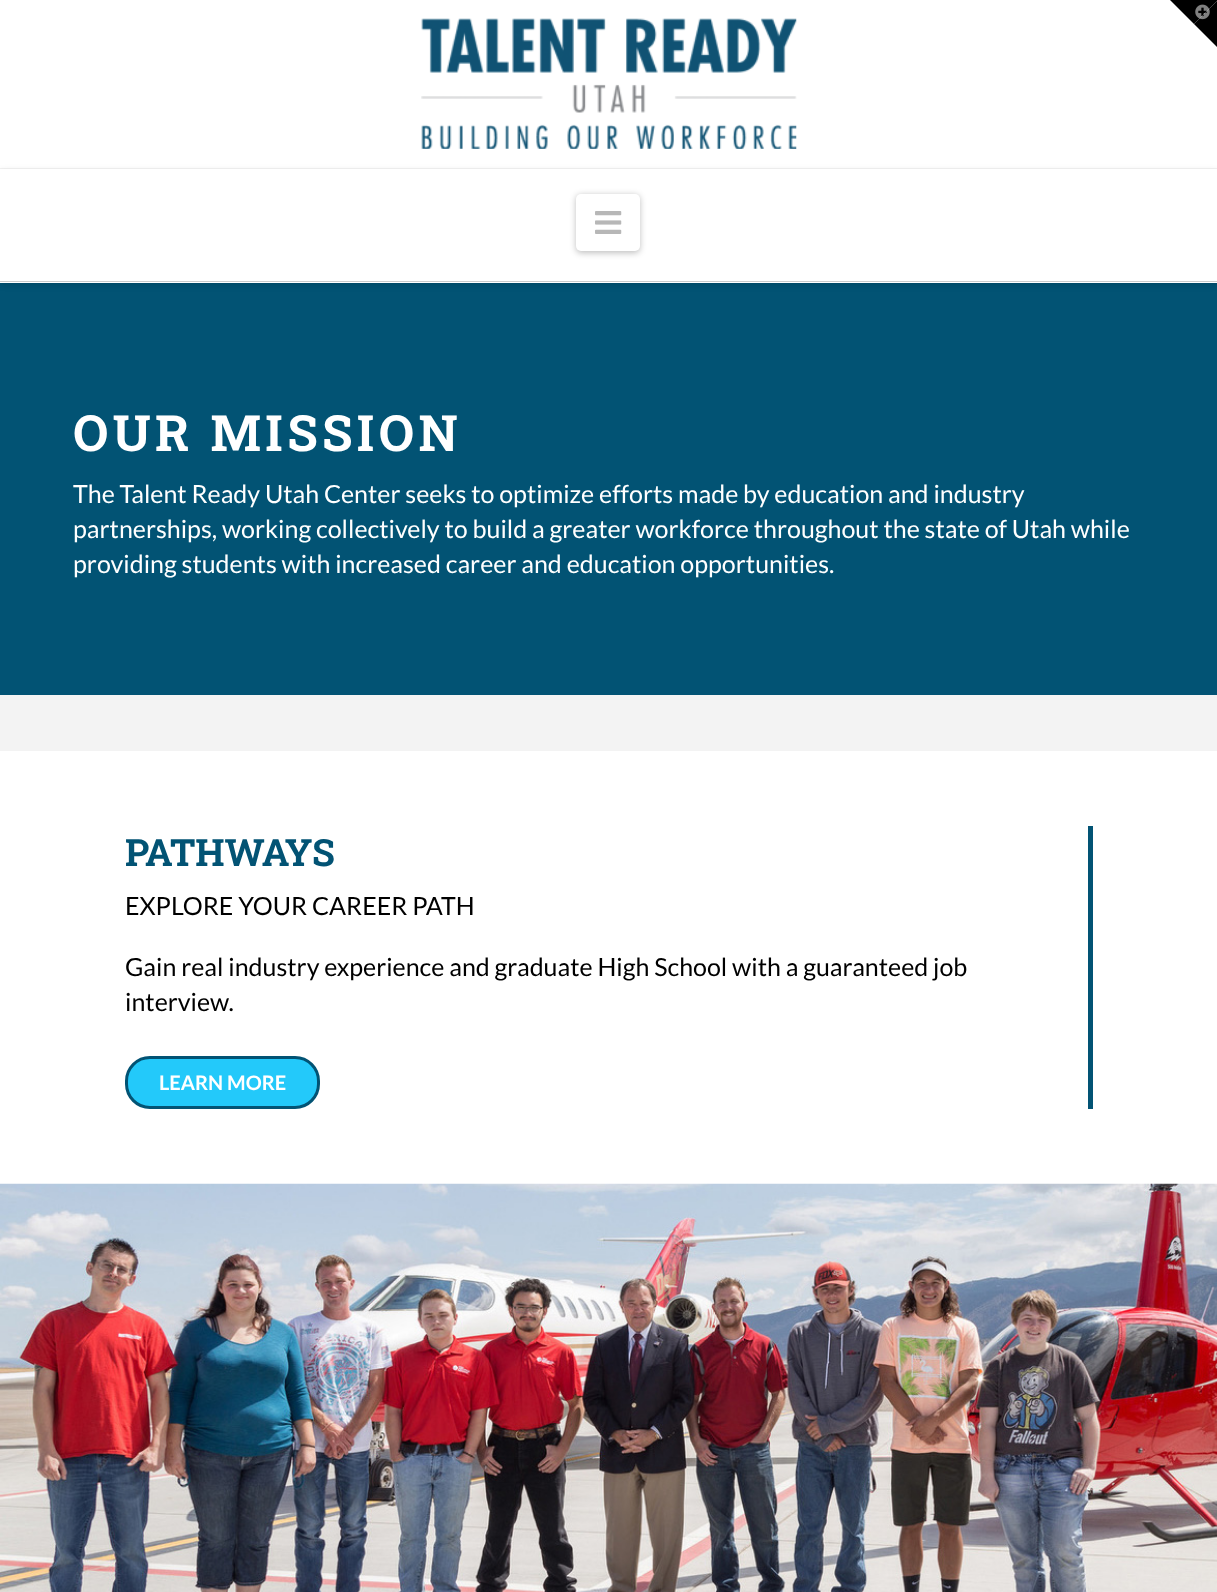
<svg xmlns="http://www.w3.org/2000/svg" width="1217" height="1592">
	<rect width="100%" height="100%" fill="#F3F3F3" />
	<rect x="0" y="0" width="1217" height="168" fill="#FFFFFF" />
	<path d="M1170 0H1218L1194 24Z" fill="#000000" />
	<path d="M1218 0V48L1194 24Z" fill="#000000" />
	<image x="1195" y="4" width="15" height="16" href="assets/img1.png" />
	<image x="421" y="18" width="376" height="131" href="assets/img2.png" />
	<rect x="0" y="283" width="1217" height="412" fill="#025374" />
	<rect x="0" y="171" width="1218" height="114" fill="#000000" fill-opacity="0.13" filter="blur(3px)" />
	<rect x="0" y="169" width="1217" height="114" fill="#FFFFFF" />
	<rect x="0" y="281" width="1217" height="1" fill="#CCCCCC" />
	<rect x="576" y="195" width="64" height="58" rx="5" fill="#000000" fill-opacity="0.25" filter="blur(3px)" />
	<rect x="576" y="194" width="64" height="57" rx="5" fill="#FFFFFF" />
	<image x="595" y="211" width="27" height="23" href="assets/img3.png" />
	<text x="73" y="451" font-family="Roboto Slab" font-size="50" font-weight="700" letter-spacing="4.4" fill="#FFFFFF">OUR MISSION</text>
	<g font-family="Lato" font-size="25" fill="#FFFFFF">
		<text x="73" y="503">The Talent Ready Utah Center seeks to optimize efforts made by education and industry</text>
		<text x="73" y="538">partnerships, working collectively to build a greater workforce throughout the state of Utah while</text>
		<text x="73" y="573">providing students with increased career and education opportunities.</text>
	</g>
	<rect x="0" y="751" width="1217" height="433" fill="#FFFFFF" />
	<rect x="1088" y="826" width="5" height="283" fill="#025374" />
	<text x="125" y="866" font-family="Roboto Slab" font-size="37.5" font-weight="700" fill="#025374">PATHWAYS</text>
	<g font-family="Lato" font-size="25" fill="#000000">
		<text x="125" y="915">EXPLORE YOUR CAREER PATH</text>
		<text x="125" y="976">Gain real industry experience and graduate High School with a guaranteed job</text>
		<text x="125" y="1011">interview.</text>
	</g>
	<rect x="126.5" y="1057.5" width="192" height="50" rx="23.5" fill="#23C9FA" stroke="#025374" stroke-width="3" />
	<text x="159" y="1090" font-family="Lato" font-size="20" font-weight="700" fill="#FFFFFF">LEARN MORE</text>
	<image x="0" y="1183" width="1217" height="409" href="assets/img4.png" />
</svg>
